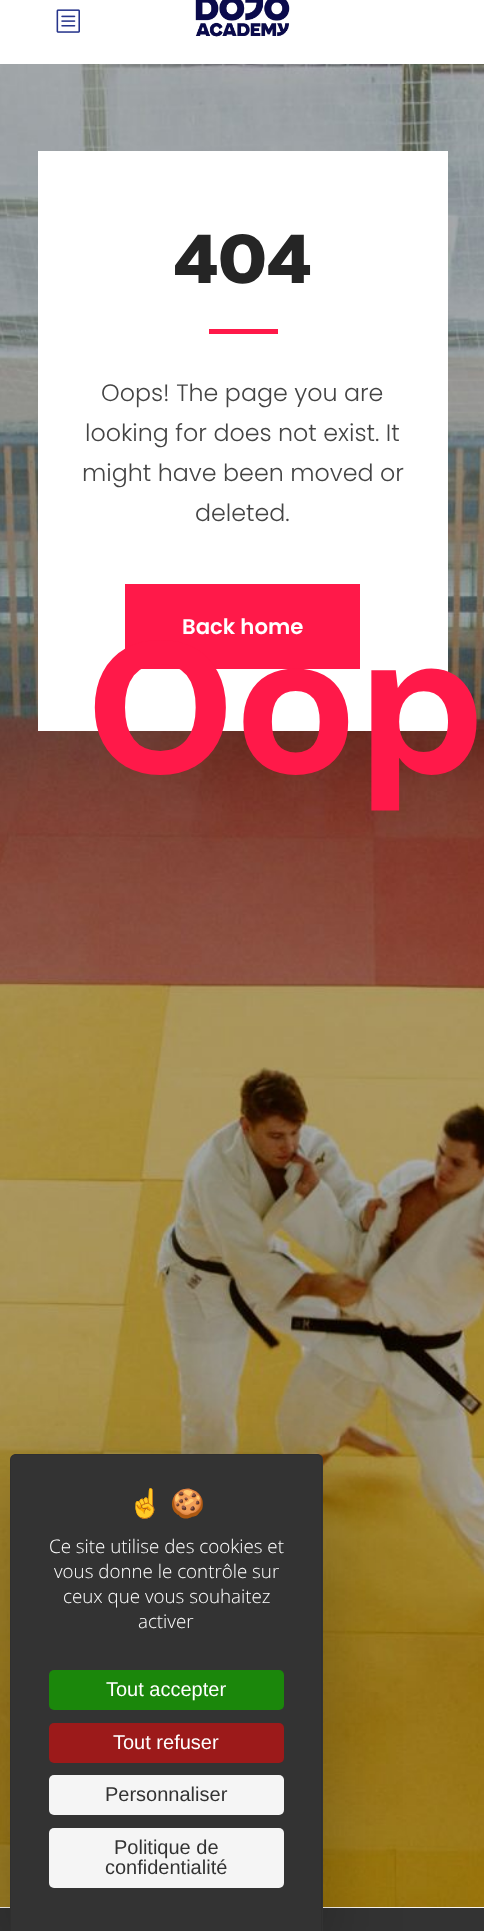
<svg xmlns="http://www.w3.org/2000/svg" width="484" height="1931">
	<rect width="100%" height="100%" fill="#FFFFFF" />
	<image x="56" y="9" width="24" height="24" href="assets/img1.png" />
	<image x="195" y="0" width="95" height="37" href="assets/img2.png" />
	<image x="0" y="64" width="484" height="1844" href="assets/img3.png" />
	<rect x="38" y="151" width="410" height="580" fill="#FFFFFF" />
	<text x="174" y="283" font-family="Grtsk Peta" font-size="69" font-weight="700" fill="#252525">404</text>
	<rect x="209" y="329" width="69" height="5" fill="#FF1949" />
	<g font-family="Poppins" font-size="23.75" font-weight="300" fill="#444444">
		<text x="101" y="401">Oops! The page you are</text>
		<text x="85" y="441">looking for does not exist. It</text>
		<text x="82" y="481">might have been moved or</text>
		<text x="195" y="521">deleted.</text>
	</g>
	<rect x="125" y="584" width="235" height="85" fill="#FF1949" />
	<text x="182" y="634" font-family="Poppins" font-size="21.25" font-weight="600" fill="#FFFFFF">Back home</text>
	<text x="86" y="773" font-family="Grtsk Peta" font-size="187.5" font-weight="600" fill="#FF1949">Oop</text>
	<rect x="0" y="1908" width="484" height="23" fill="#333333" />
	<rect x="10" y="1479" width="313" height="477" rx="6" fill="#000000" fill-opacity="0.25" filter="blur(37.5px)" />
	<path d="M16 1454H317C320.5 1454 323 1456.5 323 1460V1931H10V1460C10 1456.5 12.5 1454 16 1454Z" fill="#333333" />
	<path d="M16 1454H316C320 1454 322 1457 322 1460V1931H10V1460C10 1457 13 1454 16 1454ZM16 1455H316C319 1455 321 1457 321 1460V1931H11V1460C11 1457 13 1455 16 1455Z" fill="#000000" fill-opacity="0.08" fill-rule="evenodd" />
	<g font-family="Noto Color Emoji" font-size="28" fill="#FFFFFF">
		<text x="128" y="1513">☝️</text>
		<text x="170" y="1513">🍪</text>
	</g>
	<g font-family="Open Sans" font-size="18.75" font-weight="300" fill="#FFFFFF">
		<text x="49" y="1553">Ce site utilise des cookies et</text>
		<text x="54" y="1578">vous donne le contrôle sur</text>
		<text x="63" y="1603">ceux que vous souhaitez</text>
		<text x="138" y="1628">activer</text>
	</g>
	<rect x="49" y="1670" width="235" height="40" rx="5" fill="#1B870B" />
	<text x="106" y="1696" font-family="Liberation Sans" font-size="20" fill="#FFFFFF">Tout accepter</text>
	<rect x="49" y="1723" width="235" height="40" rx="5" fill="#9C1A1A" />
	<text x="113" y="1749" font-family="Liberation Sans" font-size="20" fill="#FFFFFF">Tout refuser</text>
	<rect x="49" y="1775" width="235" height="40" rx="5" fill="#F5F5F5" />
	<text x="105" y="1801" font-family="Liberation Sans" font-size="20" fill="#333333">Personnaliser</text>
	<rect x="49" y="1828" width="235" height="60" rx="5" fill="#F5F5F5" />
	<g font-family="Liberation Sans" font-size="20" fill="#333333">
		<text x="114" y="1854">Politique de</text>
		<text x="105" y="1874">confidentialité</text>
	</g>
</svg>
